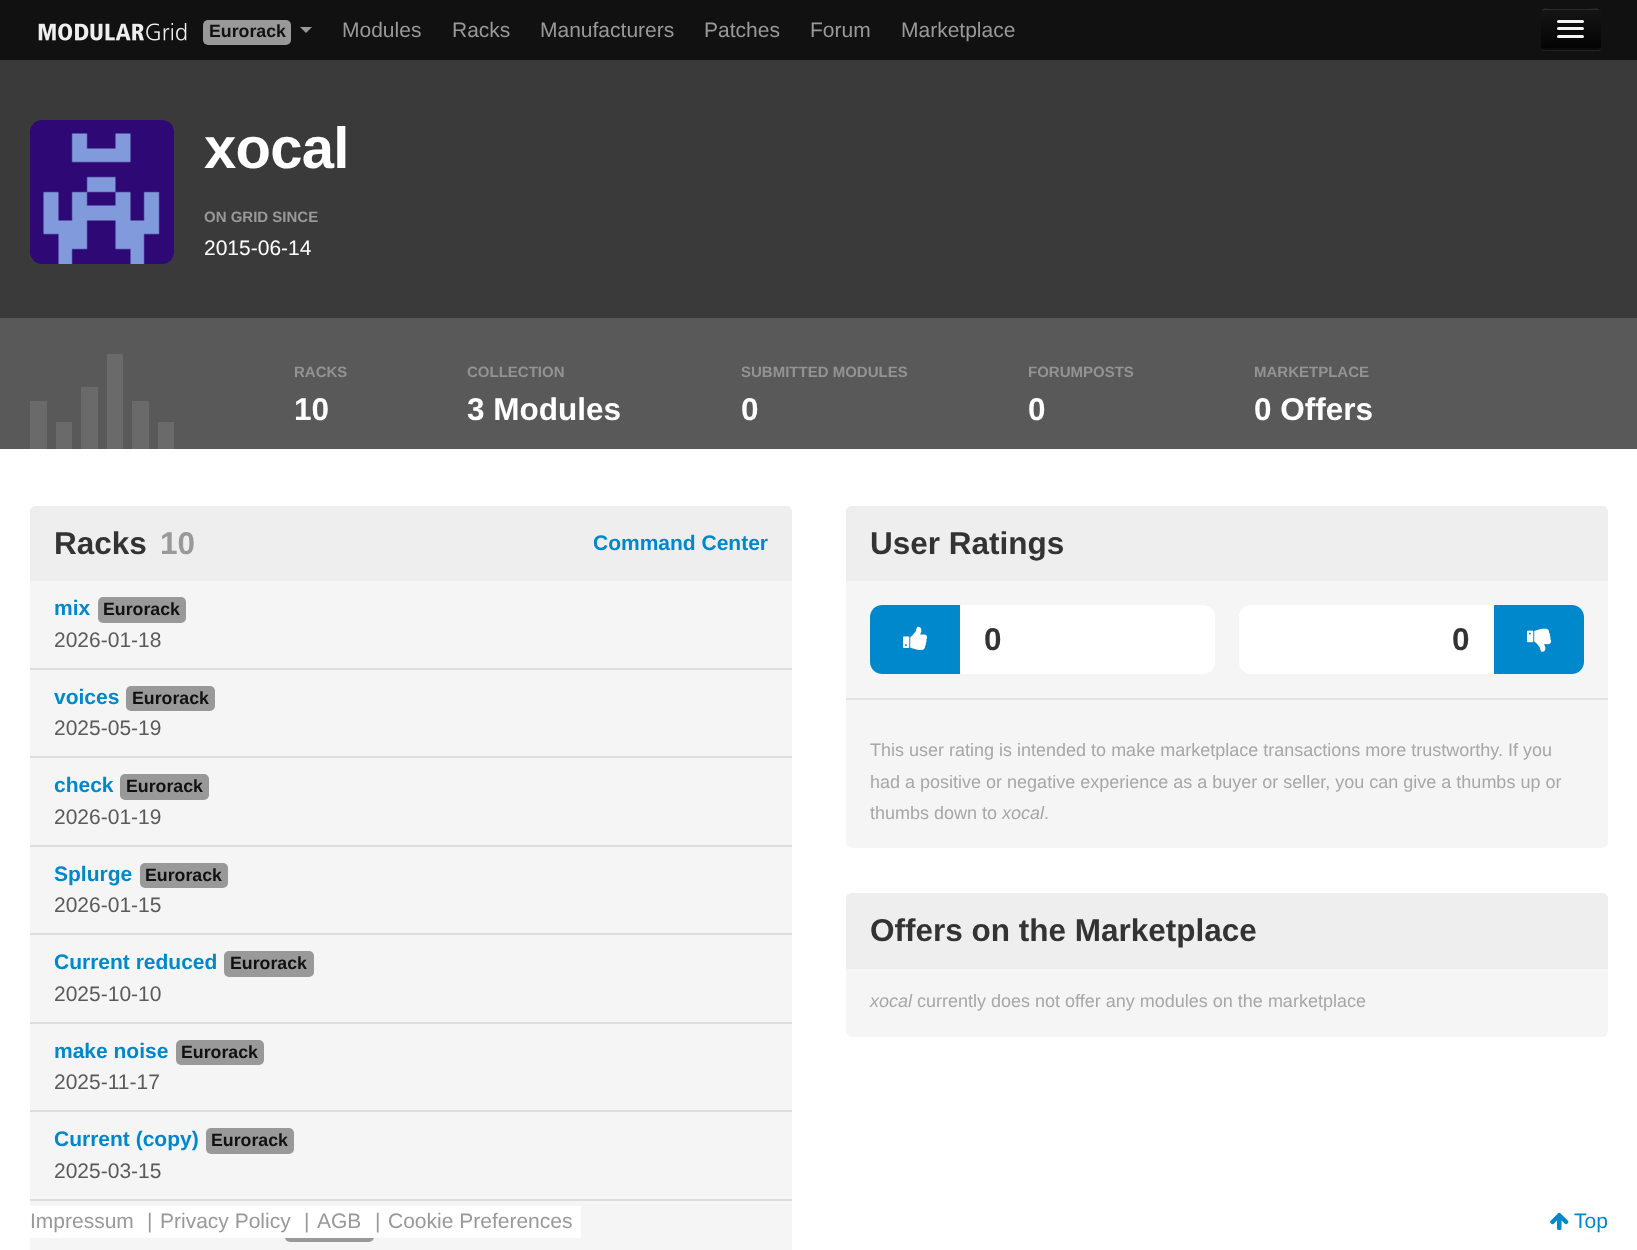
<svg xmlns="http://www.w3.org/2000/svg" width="1637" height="1250">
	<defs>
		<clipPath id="clip1"><rect x="1541" y="8" width="60" height="42" rx="3" /></clipPath>
		<linearGradient id="g1" gradientUnits="userSpaceOnUse" x1="1571" y1="9" x2="1571" y2="48"><stop offset="0" stop-color="#151515" /><stop offset="1" stop-color="#040404" /></linearGradient>
	</defs>
	<rect width="100%" height="100%" fill="#FFFFFF" />
	<rect x="0" y="0" width="1637" height="60" fill="#111111" />
	<image x="38" y="23" width="149" height="18" href="assets/img1.png" />
	<rect x="203" y="20" width="88" height="25" rx="5" fill="#999999" />
	<text x="209" y="37" font-family="Liberation Sans" font-size="17.75" font-weight="700" fill="#111111">Eurorack</text>
	<path d="M300 27H312L306 33Z" fill="#999999" />
	<g font-family="Liberation Sans" font-size="21" fill="#999999">
		<text x="342" y="37">Modules</text>
		<text x="452" y="37">Racks</text>
		<text x="540" y="37">Manufacturers</text>
		<text x="704" y="37">Patches</text>
		<text x="810" y="37">Forum</text>
		<text x="901" y="37">Marketplace</text>
	</g>
	<path d="M1541 48C1541 50 1542 51 1544 51H1598C1600 51 1601 50 1601 48V12L1600 10V40C1600 52 1600 50 1588 50H1552C1552 50 1543 51 1541 48Z" fill="#232323" />
	<rect x="1541" y="8" width="60" height="42" rx="3" fill="#0E0E0E" />
	<g clip-path="url(#clip1)">
		<rect x="1541" y="9" width="60" height="39" fill="url(#g1)" />
	</g>
	<path d="M1544 10H1598C1599 11 1599 12 1599 13C1599 6 1597 9 1588 9H1552C1547 9 1542 6 1542 12C1542 11 1543 10 1544 10Z" fill="#FFFFFF" fill-opacity="0.1" />
	<path d="M1599 48L1597.5 48.5C1593 49 1543 49 1542 48" fill="none" stroke="#000000" stroke-opacity="0.25" stroke-width="1.5" />
	<path d="M1557 21.5C1555.5 25 1562.5 24 1562.5 24H1578.5C1578.5 24 1585.5 25 1584 21.5C1583.5 22 1583 22.5 1582.5 22.5H1558.5C1558 22.5 1557.5 22 1557 21.5Z" fill="#0B0B0B" />
	<rect x="1557" y="20" width="27" height="3" rx="1.5" fill="#F5F5F5" />
	<path d="M1557.5 29.5L1557 31C1557.5 33 1562 32 1562.5 32H1578.5C1579 32 1583.5 33 1584 31L1583.5 29.5L1582.5 30H1558.5Z" fill="#090909" />
	<rect x="1557" y="27" width="27" height="3" rx="1.5" fill="#F5F5F5" />
	<path d="M1557 36.5C1555.5 40 1562.5 39 1562.5 39H1578.5C1578.5 39 1585.5 40 1584 36.5C1583.5 37 1583 37.5 1582.5 37.5H1558.5C1558 37.5 1557.5 37 1557 36.5Z" fill="#060606" />
	<rect x="1557" y="35" width="27" height="3" rx="1.5" fill="#F5F5F5" />
	<rect x="0" y="60" width="1637" height="258" fill="#3A3A3A" />
	<image x="30" y="120" width="144" height="144" href="assets/img2.png" />
	<text x="204" y="168" font-family="Liberation Sans" font-size="58" font-weight="700" letter-spacing="-0.75" fill="#FFFFFF">xocal</text>
	<text x="204" y="222" font-family="Liberation Sans" font-size="15" font-weight="700" fill="#999999">ON GRID SINCE</text>
	<text x="204" y="255" font-family="Liberation Sans" font-size="21" fill="#FFFFFF">2015-06-14</text>
	<rect x="0" y="318" width="1637" height="131" fill="#595959" />
	<rect x="30" y="401" width="17" height="48" fill="#6A6A6A" />
	<rect x="56" y="422" width="16" height="27" fill="#6A6A6A" />
	<rect x="81" y="387" width="17" height="62" fill="#6A6A6A" />
	<rect x="107" y="354" width="16" height="95" fill="#6A6A6A" />
	<rect x="132" y="401" width="17" height="48" fill="#6A6A6A" />
	<rect x="158" y="422" width="16" height="27" fill="#6A6A6A" />
	<text x="294" y="377" font-family="Liberation Sans" font-size="15" font-weight="700" fill="#939393">RACKS</text>
	<text x="294" y="420" font-family="Liberation Sans" font-size="31.5" font-weight="700" fill="#FFFFFF">10</text>
	<text x="467" y="377" font-family="Liberation Sans" font-size="15" font-weight="700" fill="#939393">COLLECTION</text>
	<text x="467" y="420" font-family="Liberation Sans" font-size="31.5" font-weight="700" fill="#FFFFFF">3 Modules</text>
	<text x="741" y="377" font-family="Liberation Sans" font-size="15" font-weight="700" fill="#939393">SUBMITTED MODULES</text>
	<text x="741" y="420" font-family="Liberation Sans" font-size="31.5" font-weight="700" fill="#FFFFFF">0</text>
	<text x="1028" y="377" font-family="Liberation Sans" font-size="15" font-weight="700" fill="#939393">FORUMPOSTS</text>
	<text x="1028" y="420" font-family="Liberation Sans" font-size="31.5" font-weight="700" fill="#FFFFFF">0</text>
	<text x="1254" y="377" font-family="Liberation Sans" font-size="15" font-weight="700" fill="#939393">MARKETPLACE</text>
	<text x="1254" y="420" font-family="Liberation Sans" font-size="31.5" font-weight="700" fill="#FFFFFF">0 Offers</text>
	<rect x="30" y="506" width="762" height="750" rx="6" fill="#F5F5F5" />
	<path d="M36 506H786C789.5 506 792 508.5 792 512V581H30V512C30 508.5 32.5 506 36 506Z" fill="#EEEEEE" />
	<text x="54" y="554" font-family="Liberation Sans" font-size="31.5" font-weight="700" fill="#333333">Racks</text>
	<text x="160" y="554" font-family="Liberation Sans" font-size="31.5" font-weight="700" fill="#999999">10</text>
	<g font-family="Liberation Sans" font-size="21" font-weight="700" fill="#0088CC">
		<text x="593" y="550">Command Center</text>
		<text x="54" y="615">mix</text>
	</g>
	<rect x="98" y="597" width="88" height="26" rx="5" fill="#999999" />
	<text x="103" y="615" font-family="Liberation Sans" font-size="17.75" font-weight="700" fill="#111111">Eurorack</text>
	<text x="54" y="647" font-family="Liberation Sans" font-size="21" fill="#5A5A5A">2026-01-18</text>
	<rect x="30" y="668" width="762" height="2" fill="#DDDDDD" />
	<text x="54" y="704" font-family="Liberation Sans" font-size="21" font-weight="700" fill="#0088CC">voices</text>
	<rect x="126" y="686" width="89" height="25" rx="5" fill="#999999" />
	<text x="132" y="704" font-family="Liberation Sans" font-size="17.75" font-weight="700" fill="#111111">Eurorack</text>
	<text x="54" y="735" font-family="Liberation Sans" font-size="21" fill="#5A5A5A">2025-05-19</text>
	<rect x="30" y="756" width="762" height="2" fill="#DDDDDD" />
	<text x="54" y="792" font-family="Liberation Sans" font-size="21" font-weight="700" fill="#0088CC">check</text>
	<rect x="120" y="774" width="89" height="26" rx="5" fill="#999999" />
	<text x="126" y="792" font-family="Liberation Sans" font-size="17.75" font-weight="700" fill="#111111">Eurorack</text>
	<text x="54" y="824" font-family="Liberation Sans" font-size="21" fill="#5A5A5A">2026-01-19</text>
	<rect x="30" y="845" width="762" height="2" fill="#DDDDDD" />
	<text x="54" y="881" font-family="Liberation Sans" font-size="21" font-weight="700" fill="#0088CC">Splurge</text>
	<rect x="140" y="863" width="88" height="25" rx="5" fill="#999999" />
	<text x="145" y="881" font-family="Liberation Sans" font-size="17.75" font-weight="700" fill="#111111">Eurorack</text>
	<text x="54" y="912" font-family="Liberation Sans" font-size="21" fill="#5A5A5A">2026-01-15</text>
	<rect x="30" y="933" width="762" height="2" fill="#DDDDDD" />
	<text x="54" y="969" font-family="Liberation Sans" font-size="21" font-weight="700" fill="#0088CC">Current reduced</text>
	<rect x="224" y="951" width="90" height="26" rx="5" fill="#999999" />
	<text x="230" y="969" font-family="Liberation Sans" font-size="17.75" font-weight="700" fill="#111111">Eurorack</text>
	<text x="54" y="1001" font-family="Liberation Sans" font-size="21" fill="#5A5A5A">2025-10-10</text>
	<rect x="30" y="1022" width="762" height="2" fill="#DDDDDD" />
	<text x="54" y="1058" font-family="Liberation Sans" font-size="21" font-weight="700" fill="#0088CC">make noise</text>
	<rect x="176" y="1040" width="88" height="25" rx="5" fill="#999999" />
	<text x="181" y="1058" font-family="Liberation Sans" font-size="17.75" font-weight="700" fill="#111111">Eurorack</text>
	<text x="54" y="1089" font-family="Liberation Sans" font-size="21" fill="#5A5A5A">2025-11-17</text>
	<rect x="30" y="1110" width="762" height="2" fill="#DDDDDD" />
	<text x="54" y="1146" font-family="Liberation Sans" font-size="21" font-weight="700" fill="#0088CC">Current (copy)</text>
	<rect x="206" y="1128" width="88" height="26" rx="5" fill="#999999" />
	<text x="211" y="1146" font-family="Liberation Sans" font-size="17.75" font-weight="700" fill="#111111">Eurorack</text>
	<text x="54" y="1178" font-family="Liberation Sans" font-size="21" fill="#5A5A5A">2025-03-15</text>
	<rect x="30" y="1199" width="762" height="2" fill="#DDDDDD" />
	<rect x="285" y="1217" width="89" height="25" rx="5" fill="#999999" />
	<rect x="846" y="506" width="762" height="342" rx="6" fill="#F5F5F5" />
	<path d="M852 506H1602C1605.5 506 1608 508.5 1608 512V581H846V512C846 508.5 848.5 506 852 506Z" fill="#EEEEEE" />
	<text x="870" y="554" font-family="Liberation Sans" font-size="31.5" font-weight="700" fill="#333333">User Ratings</text>
	<rect x="870" y="605" width="345" height="69" rx="12" fill="#FFFFFF" />
	<path d="M882 605H960V674H882C875.5 674 870 668.5 870 662V617C870 610.5 875.5 605 882 605Z" fill="#0088CC" />
	<image x="903" y="626" width="25" height="24" href="assets/img3.png" />
	<text x="984" y="650" font-family="Liberation Sans" font-size="31.5" font-weight="700" fill="#333333">0</text>
	<rect x="1239" y="605" width="345" height="69" rx="12" fill="#FFFFFF" />
	<text x="1452" y="650" font-family="Liberation Sans" font-size="31.5" font-weight="700" fill="#333333">0</text>
	<path d="M1494 605H1572C1578.5 605 1584 610.5 1584 617V662C1584 668.5 1578.5 674 1572 674H1494Z" fill="#0088CC" />
	<image x="1527" y="628" width="25" height="24" href="assets/img4.png" />
	<rect x="846" y="698" width="762" height="2" fill="#E3E3E3" />
	<g font-family="Liberation Sans" font-size="18" fill="#A7A7A7">
		<text x="870" y="756">This user rating is intended to make marketplace transactions more trustworthy. If you</text>
		<text x="870" y="788">had a positive or negative experience as a buyer or seller, you can give a thumbs up or</text>
		<text x="870" y="819">thumbs down to</text>
	</g>
	<text x="1002" y="819" font-family="Liberation Sans" font-size="18" font-style="italic" fill="#A7A7A7">xocal</text>
	<text x="1044" y="819" font-family="Liberation Sans" font-size="18" fill="#A7A7A7">.</text>
	<rect x="846" y="893" width="762" height="144" rx="6" fill="#F5F5F5" />
	<path d="M852 893H1602C1605.5 893 1608 895.5 1608 899V969H846V899C846 895.5 848.5 893 852 893Z" fill="#EEEEEE" />
	<text x="870" y="941" font-family="Liberation Sans" font-size="31.5" font-weight="700" fill="#333333">Offers on the Marketplace</text>
	<text x="870" y="1007" font-family="Liberation Sans" font-size="18" font-style="italic" fill="#A7A7A7">xocal</text>
	<text x="917" y="1007" font-family="Liberation Sans" font-size="18" fill="#A7A7A7">currently does not offer any modules on the marketplace</text>
	<rect x="30" y="1206" width="551" height="32" fill="#FFFFFF" />
	<g font-family="Liberation Sans" font-size="21" fill="#999999">
		<text x="30" y="1228">Impressum</text>
		<text x="147" y="1228">|</text>
		<text x="160" y="1228">Privacy Policy</text>
		<text x="304" y="1228">|</text>
		<text x="317" y="1228">AGB</text>
		<text x="375" y="1228">|</text>
		<text x="388" y="1228">Cookie Preferences</text>
	</g>
	<image x="1550" y="1212" width="19" height="18" href="assets/img5.png" />
	<text x="1574" y="1228" font-family="Liberation Sans" font-size="21" fill="#0088CC">Top</text>
</svg>
